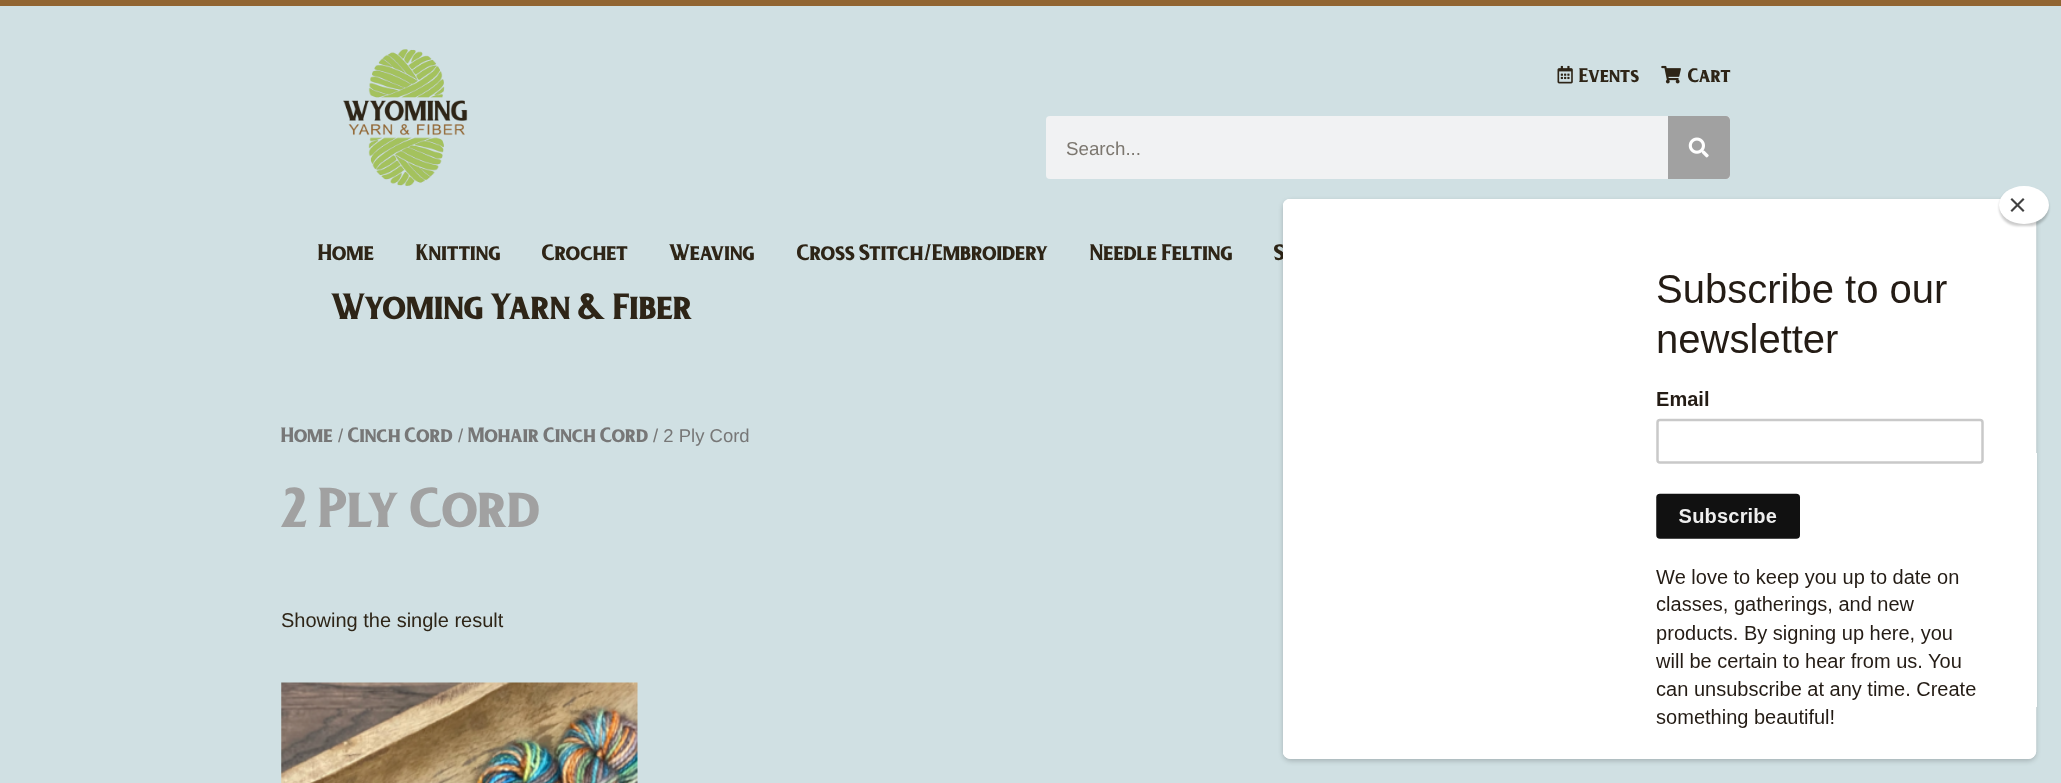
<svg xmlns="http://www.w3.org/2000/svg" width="2061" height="783">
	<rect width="100%" height="100%" fill="#D0E0E3" />
	<rect x="0" y="0" width="2061" height="6" fill="#916532" />
	<image x="343" y="49" width="125" height="137" href="assets/img1.png" />
	<image x="1557" y="65" width="16" height="19" href="assets/img2.png" />
	<text x="1579" y="82" font-family="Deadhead" font-size="17.5" fill="#2E2517">Events</text>
	<image x="1661" y="65" width="20" height="19" href="assets/img3.png" />
	<text x="1688" y="82" font-family="Deadhead" font-size="17.5" fill="#2E2517">Cart</text>
	<rect x="1046" y="116" width="684" height="63" rx="4" fill="#F1F2F3" />
	<text x="1066" y="155" font-family="Liberation Sans" font-size="18.75" fill="#7C776F">Search...</text>
	<path d="M1668 116H1726C1728 116 1730 118 1730 120V175C1730 177 1728 179 1726 179H1668Z" fill="#A1A1A1" />
	<image x="1688" y="137" width="21" height="21" href="assets/img4.png" />
	<g font-family="Deadhead" font-size="20" fill="#2E2517">
		<text x="318" y="260">Home</text>
		<text x="416" y="260">Knitting</text>
		<text x="542" y="260">Crochet</text>
		<text x="669" y="260">Weaving</text>
		<text x="797" y="260">Cross Stitch/Embroidery</text>
		<text x="1090" y="260">Needle Felting</text>
		<text x="1274" y="260">S</text>
	</g>
	<text x="331" y="319" font-family="Deadhead" font-size="32.5" fill="#2E2517">Wyoming Yarn &amp; Fiber</text>
	<text x="281" y="442" font-family="Deadhead" font-size="18.5" fill="#777777">Home</text>
	<text x="338" y="442" font-family="Liberation Sans" font-size="18.5" fill="#777777">/</text>
	<text x="348" y="442" font-family="Deadhead" font-size="18.5" fill="#777777">Cinch Cord</text>
	<text x="458" y="442" font-family="Liberation Sans" font-size="18.5" fill="#777777">/</text>
	<text x="468" y="442" font-family="Deadhead" font-size="18.5" fill="#777777">Mohair Cinch Cord</text>
	<text x="653" y="442" font-family="Liberation Sans" font-size="18.5" fill="#777777">/ 2 Ply Cord</text>
	<text x="281" y="527" font-family="Deadhead" font-size="50" fill="#A1A1A1">2 Ply Cord</text>
	<text x="281" y="627" font-family="Liberation Sans" font-size="20" fill="#2E2517">Showing the single result</text>
	<image x="281" y="682" width="357" height="101" href="assets/img5.png" />
	<rect x="1283" y="201" width="753" height="560" rx="8" fill="#000000" fill-opacity="0.2" filter="blur(2.5px)" />
	<rect x="1283" y="199" width="753" height="560" rx="8" fill="#FFFFFF" />
	<image x="1283" y="199" width="754" height="560" href="assets/img6.png" />
	<rect x="1999" y="189" width="50" height="37" rx="18.5" fill="#000000" fill-opacity="0.2" filter="blur(1px)" />
	<ellipse cx="2024" cy="205" rx="25" ry="19" fill="#FFFFFF" />
	<path d="M2023 198L2024.5 199.5L2012 212L2010.5 210.5Z" fill="#414141" />
	<path d="M2010.5 199.5L2012 198L2024.5 210.5L2023 212Z" fill="#414141" />
</svg>
